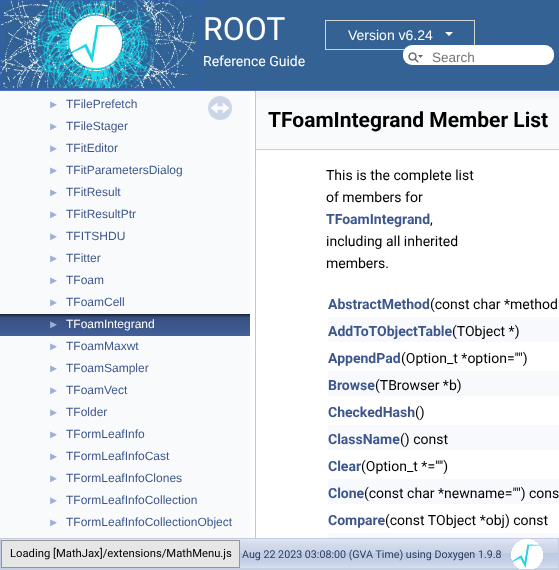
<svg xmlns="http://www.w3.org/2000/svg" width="559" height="570">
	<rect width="100%" height="100%" fill="#FFFFFF" />
	<rect x="0" y="90" width="559" height="1" fill="#5373B4" />
	<rect x="203" y="0" width="356" height="90" fill="#346295" />
	<image x="0" y="0" width="203" height="90" href="assets/img1.png" />
	<text x="203" y="40" font-family="Roboto" font-size="32" fill="#FFFFFF">ROOT</text>
	<rect x="325.5" y="20.5" width="149" height="29" fill="none" stroke="#D3D3D3" />
	<text x="348" y="40" font-family="Liberation Sans" font-size="14" fill="#FFFFFF">Version v6.24</text>
	<path d="M445 32H453L449 36Z" fill="#FFFFFF" />
	<text x="203" y="66" font-family="Roboto" font-size="14" fill="#FFFFFF">Reference Guide</text>
	<rect x="403" y="45" width="151" height="20" rx="9" fill="#FFFFFF" />
	<image x="408" y="52" width="15" height="11" href="assets/img2.png" />
	<text x="432" y="62" font-family="Liberation Sans" font-size="13.5" fill="#757575">Search</text>
	<rect x="0" y="91" width="250" height="447" fill="#F9FAFC" />
	<image x="208" y="96" width="24" height="24" href="assets/img3.png" />
	<text x="48" y="108" font-family="Liberation Sans" font-size="11.25" fill="#9CAFD4">►</text>
	<text x="66" y="108" font-family="Liberation Sans" font-size="12" fill="#3D578C">TFilePrefetch</text>
	<text x="48" y="130" font-family="Liberation Sans" font-size="11.25" fill="#9CAFD4">►</text>
	<text x="66" y="130" font-family="Liberation Sans" font-size="12" fill="#3D578C">TFileStager</text>
	<text x="48" y="152" font-family="Liberation Sans" font-size="11.25" fill="#9CAFD4">►</text>
	<text x="66" y="152" font-family="Liberation Sans" font-size="12" fill="#3D578C">TFitEditor</text>
	<text x="48" y="174" font-family="Liberation Sans" font-size="11.25" fill="#9CAFD4">►</text>
	<text x="66" y="174" font-family="Liberation Sans" font-size="12" fill="#3D578C">TFitParametersDialog</text>
	<text x="48" y="196" font-family="Liberation Sans" font-size="11.25" fill="#9CAFD4">►</text>
	<text x="66" y="196" font-family="Liberation Sans" font-size="12" fill="#3D578C">TFitResult</text>
	<text x="48" y="218" font-family="Liberation Sans" font-size="11.25" fill="#9CAFD4">►</text>
	<text x="66" y="218" font-family="Liberation Sans" font-size="12" fill="#3D578C">TFitResultPtr</text>
	<text x="48" y="240" font-family="Liberation Sans" font-size="11.25" fill="#9CAFD4">►</text>
	<text x="66" y="240" font-family="Liberation Sans" font-size="12" fill="#3D578C">TFITSHDU</text>
	<text x="48" y="262" font-family="Liberation Sans" font-size="11.25" fill="#9CAFD4">►</text>
	<text x="66" y="262" font-family="Liberation Sans" font-size="12" fill="#3D578C">TFitter</text>
	<text x="48" y="284" font-family="Liberation Sans" font-size="11.25" fill="#9CAFD4">►</text>
	<text x="66" y="284" font-family="Liberation Sans" font-size="12" fill="#3D578C">TFoam</text>
	<text x="48" y="306" font-family="Liberation Sans" font-size="11.25" fill="#9CAFD4">►</text>
	<text x="66" y="306" font-family="Liberation Sans" font-size="12" fill="#3D578C">TFoamCell</text>
	<image x="0" y="314" width="250" height="22" href="assets/img4.png" />
	<text x="48" y="328" font-family="Liberation Sans" font-size="11.25" fill="#9CAFD4">►</text>
	<text x="66" y="328" font-family="Liberation Sans" font-size="12" fill="#FFFFFF">TFoamIntegrand</text>
	<text x="48" y="350" font-family="Liberation Sans" font-size="11.25" fill="#9CAFD4">►</text>
	<text x="66" y="350" font-family="Liberation Sans" font-size="12" fill="#3D578C">TFoamMaxwt</text>
	<text x="48" y="372" font-family="Liberation Sans" font-size="11.25" fill="#9CAFD4">►</text>
	<text x="66" y="372" font-family="Liberation Sans" font-size="12" fill="#3D578C">TFoamSampler</text>
	<text x="48" y="394" font-family="Liberation Sans" font-size="11.25" fill="#9CAFD4">►</text>
	<text x="66" y="394" font-family="Liberation Sans" font-size="12" fill="#3D578C">TFoamVect</text>
	<text x="48" y="416" font-family="Liberation Sans" font-size="11.25" fill="#9CAFD4">►</text>
	<text x="66" y="416" font-family="Liberation Sans" font-size="12" fill="#3D578C">TFolder</text>
	<text x="48" y="438" font-family="Liberation Sans" font-size="11.25" fill="#9CAFD4">►</text>
	<text x="66" y="438" font-family="Liberation Sans" font-size="12" fill="#3D578C">TFormLeafInfo</text>
	<text x="48" y="460" font-family="Liberation Sans" font-size="11.25" fill="#9CAFD4">►</text>
	<text x="66" y="460" font-family="Liberation Sans" font-size="12" fill="#3D578C">TFormLeafInfoCast</text>
	<text x="48" y="482" font-family="Liberation Sans" font-size="11.25" fill="#9CAFD4">►</text>
	<text x="66" y="482" font-family="Liberation Sans" font-size="12" fill="#3D578C">TFormLeafInfoClones</text>
	<text x="48" y="504" font-family="Liberation Sans" font-size="11.25" fill="#9CAFD4">►</text>
	<text x="66" y="504" font-family="Liberation Sans" font-size="12" fill="#3D578C">TFormLeafInfoCollection</text>
	<text x="48" y="526" font-family="Liberation Sans" font-size="11.25" fill="#9CAFD4">►</text>
	<text x="66" y="526" font-family="Liberation Sans" font-size="12" fill="#3D578C">TFormLeafInfoCollectionObject</text>
	<image x="255" y="91" width="1" height="447" href="assets/img5.png" />
	<rect x="256" y="99" width="303" height="50" fill="#F9FAFC" />
	<image x="256" y="91" width="303" height="8" href="assets/img6.png" />
	<rect x="256" y="149" width="303" height="1" fill="#C4CFE5" />
	<text x="268" y="127" font-family="Roboto" font-size="21" font-weight="700" fill="#000000">TFoamIntegrand Member List</text>
	<g font-family="Roboto" font-size="14" fill="#000000">
		<text x="326" y="180">This is the complete list</text>
		<text x="326" y="202">of members for</text>
	</g>
	<text x="326" y="224" font-family="Roboto" font-size="14" font-weight="700" fill="#3D578C">TFoamIntegrand</text>
	<g font-family="Roboto" font-size="14" fill="#000000">
		<text x="430" y="224">,</text>
		<text x="326" y="246">including all inherited</text>
		<text x="326" y="268">members.</text>
	</g>
	<text x="328" y="309" font-family="Roboto" font-size="14" font-weight="700" fill="#3D578C">AbstractMethod</text>
	<text x="430" y="309" font-family="Roboto" font-size="14" fill="#000000">(const char *method</text>
	<rect x="328" y="317" width="231" height="25" fill="#F8F9FC" />
	<text x="328" y="336" font-family="Roboto" font-size="14" font-weight="700" fill="#3D578C">AddToTObjectTable</text>
	<text x="452" y="336" font-family="Roboto" font-size="14" fill="#000000">(TObject *)</text>
	<text x="328" y="363" font-family="Roboto" font-size="14" font-weight="700" fill="#3D578C">AppendPad</text>
	<text x="401" y="363" font-family="Roboto" font-size="14" fill="#000000">(Option_t *option="")</text>
	<rect x="328" y="371" width="231" height="25" fill="#F8F9FC" />
	<text x="328" y="390" font-family="Roboto" font-size="14" font-weight="700" fill="#3D578C">Browse</text>
	<text x="375" y="390" font-family="Roboto" font-size="14" fill="#000000">(TBrowser *b)</text>
	<text x="328" y="417" font-family="Roboto" font-size="14" font-weight="700" fill="#3D578C">CheckedHash</text>
	<text x="415" y="417" font-family="Roboto" font-size="14" fill="#000000">()</text>
	<rect x="328" y="425" width="231" height="25" fill="#F8F9FC" />
	<text x="328" y="444" font-family="Roboto" font-size="14" font-weight="700" fill="#3D578C">ClassName</text>
	<text x="400" y="444" font-family="Roboto" font-size="14" fill="#000000">() const</text>
	<text x="328" y="471" font-family="Roboto" font-size="14" font-weight="700" fill="#3D578C">Clear</text>
	<text x="361" y="471" font-family="Roboto" font-size="14" fill="#000000">(Option_t *="")</text>
	<rect x="328" y="479" width="231" height="25" fill="#F8F9FC" />
	<text x="328" y="498" font-family="Roboto" font-size="14" font-weight="700" fill="#3D578C">Clone</text>
	<text x="364" y="498" font-family="Roboto" font-size="14" fill="#000000">(const char *newname="") cons</text>
	<text x="328" y="525" font-family="Roboto" font-size="14" font-weight="700" fill="#3D578C">Compare</text>
	<text x="385" y="525" font-family="Roboto" font-size="14" fill="#000000">(const TObject *obj) const</text>
	<rect x="328" y="533" width="231" height="5" fill="#F8F9FC" />
	<image x="1" y="539" width="557" height="30" href="assets/img7.png" />
	<rect x="0.5" y="538.5" width="558" height="31" fill="none" stroke="#C2CDE4" />
	<rect x="1.5" y="540.5" width="238" height="27" fill="#E6E6E6" stroke="#959595" />
	<text x="10" y="557" font-family="Roboto" font-size="11.25" fill="#000000">Loading [MathJax]/extensions/MathMenu.js</text>
	<text x="242" y="558" font-family="Roboto" font-size="10.7" fill="#2A3D61">Aug 22 2023 03:08:00 (GVA Time) using Doxygen 1.9.8</text>
	<image x="511" y="539" width="32" height="30" href="assets/img8.png" />
</svg>
